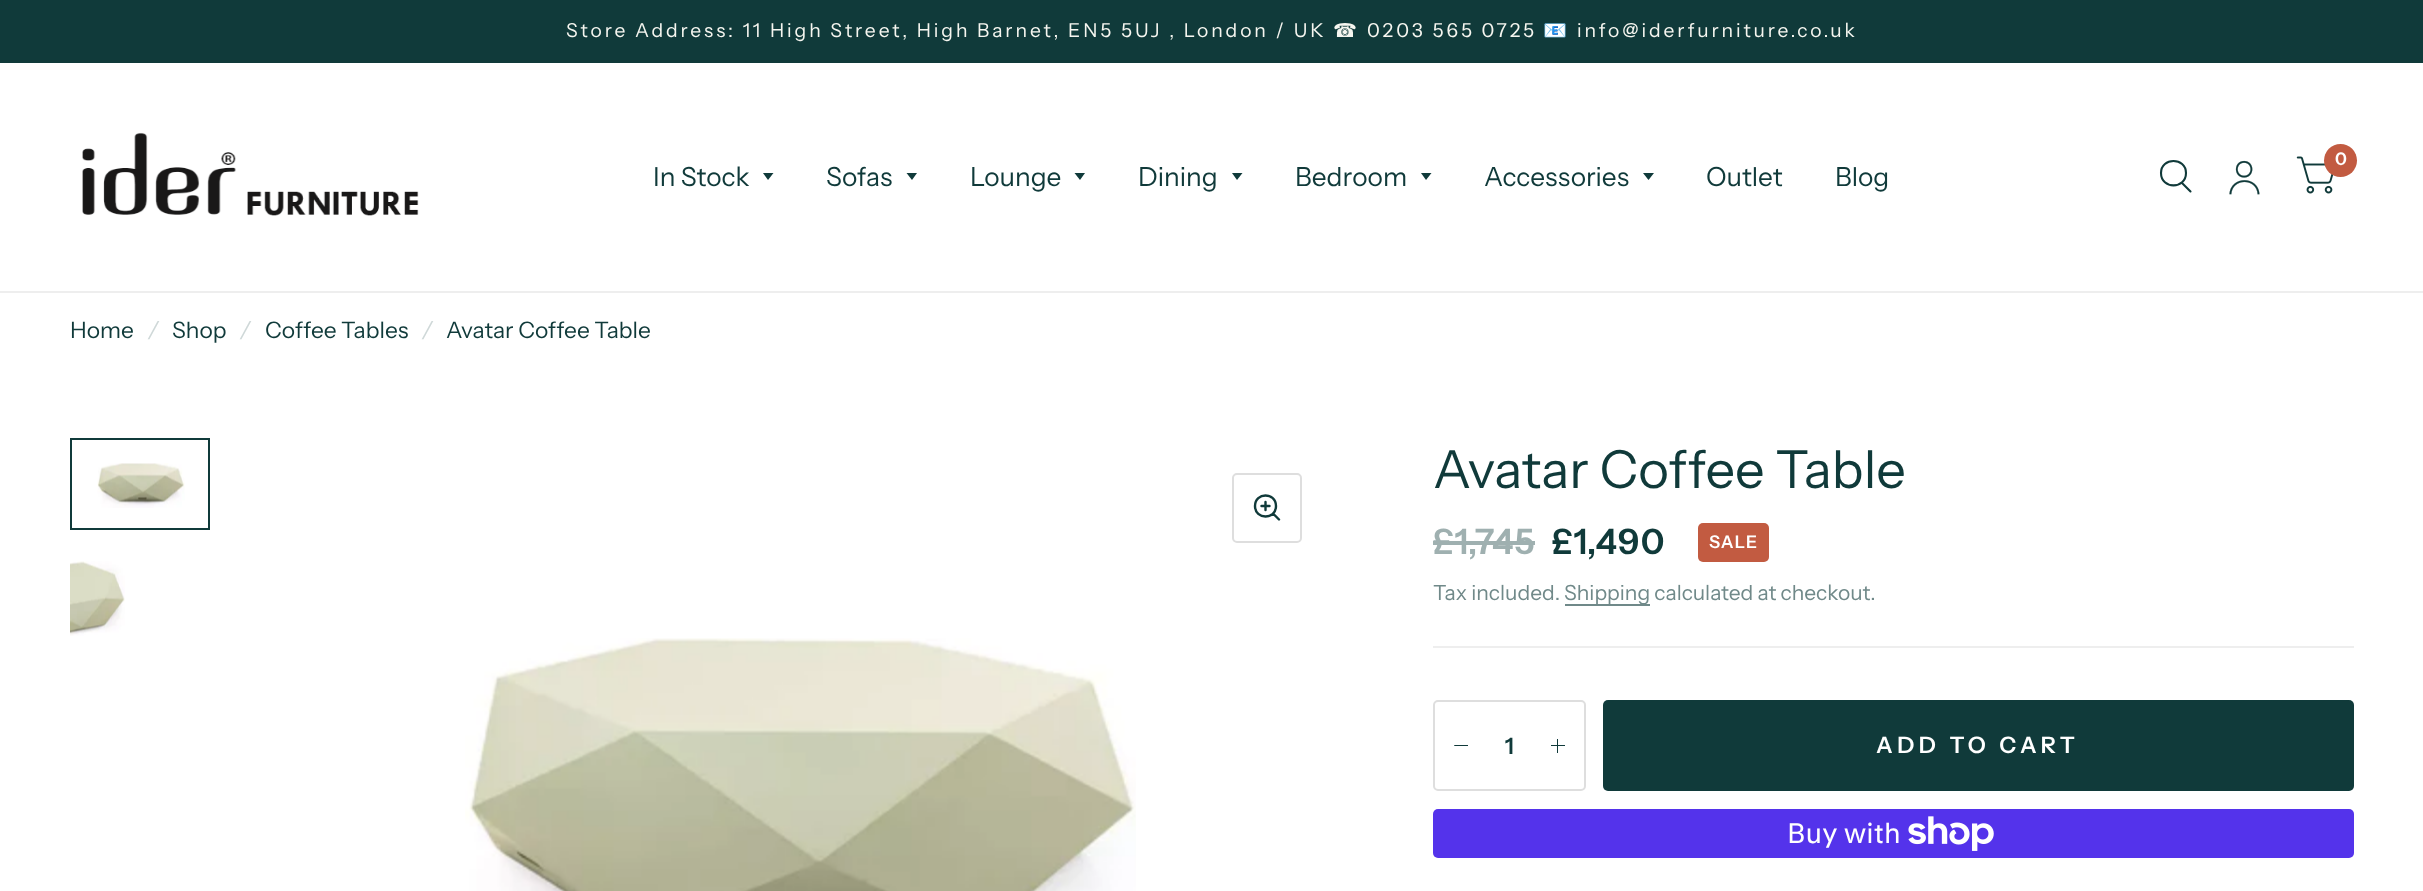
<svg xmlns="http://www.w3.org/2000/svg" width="2423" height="891">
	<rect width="100%" height="100%" fill="#FFFFFF" />
	<rect x="0" y="0" width="2423" height="63" fill="#103A3A" />
	<text x="566" y="37" font-family="Instrument Sans" font-size="19.25" letter-spacing="2.9" fill="#F6F6F0">Store Address: 11 High Street, High Barnet, EN5 5UJ , London / UK</text>
	<text x="1333" y="37" font-family="DejaVu Sans" font-size="19.25" letter-spacing="2.9" fill="#F6F6F0">☎</text>
	<text x="1367" y="37" font-family="Instrument Sans" font-size="19.25" letter-spacing="2.9" fill="#F6F6F0">0203 565 0725</text>
	<text x="1543" y="37" font-family="Noto Color Emoji" font-size="19.25" letter-spacing="2.9" fill="#F6F6F0">📧</text>
	<text x="1577" y="37" font-family="Instrument Sans" font-size="19.25" letter-spacing="2.9" fill="#F6F6F0">info@iderfurniture.co.uk</text>
	<rect x="0" y="291" width="2423" height="2" fill="#EEEEEE" />
	<image x="82" y="132" width="337" height="84" href="assets/img1.png" />
	<path d="M2182 183L2190.5 191.5M2186 173C2186 189.5 2161 189.5 2161 173C2161 157 2186 157 2186 173Z" fill="none" stroke="#103A3A" stroke-width="2.1" stroke-linecap="round" stroke-linejoin="round" />
	<image x="2229" y="160" width="31" height="35" href="assets/img2.png" />
	<image x="2296" y="156" width="38" height="38" href="assets/img3.png" />
	<circle cx="2340.5" cy="160.5" r="16.5" fill="#C25B41" />
	<text x="2335" y="165" font-family="Instrument Sans" font-size="17.5" font-weight="600" fill="#FFFFFF">0</text>
	<text x="653" y="186" font-family="Instrument Sans" font-size="26.25" fill="#103A3A">In Stock</text>
	<path d="M763 173H773.5L768 180Z" fill="#103A3A" />
	<text x="826" y="186" font-family="Instrument Sans" font-size="26.25" fill="#103A3A">Sofas</text>
	<path d="M906.5 173H917L912 180Z" fill="#103A3A" />
	<text x="970" y="186" font-family="Instrument Sans" font-size="26.25" fill="#103A3A">Lounge</text>
	<path d="M1074.5 173H1085L1080 180Z" fill="#103A3A" />
	<text x="1138" y="186" font-family="Instrument Sans" font-size="26.25" fill="#103A3A">Dining</text>
	<path d="M1232 173H1242.5L1237 180Z" fill="#103A3A" />
	<text x="1295" y="186" font-family="Instrument Sans" font-size="26.25" fill="#103A3A">Bedroom</text>
	<path d="M1421 173H1431.5L1426 180Z" fill="#103A3A" />
	<text x="1484" y="186" font-family="Instrument Sans" font-size="26.25" fill="#103A3A">Accessories</text>
	<path d="M1643 173H1654L1648.5 180Z" fill="#103A3A" />
	<g font-family="Instrument Sans" font-size="26.25" fill="#103A3A">
		<text x="1706" y="186">Outlet</text>
		<text x="1835" y="186">Blog</text>
	</g>
	<text x="70" y="338" font-family="Instrument Sans" font-size="22.75" fill="#103A3A">Home</text>
	<text x="148" y="338" font-family="Instrument Sans" font-size="22.75" font-style="italic" fill="#CFD8D8">/</text>
	<text x="172" y="338" font-family="Instrument Sans" font-size="22.75" fill="#103A3A">Shop</text>
	<text x="240" y="338" font-family="Instrument Sans" font-size="22.75" font-style="italic" fill="#CFD8D8">/</text>
	<text x="265" y="338" font-family="Instrument Sans" font-size="22.75" fill="#103A3A">Coffee Tables</text>
	<text x="422" y="338" font-family="Instrument Sans" font-size="22.75" font-style="italic" fill="#CFD8D8">/</text>
	<text x="446" y="338" font-family="Instrument Sans" font-size="22.75" fill="#103A3A">Avatar Coffee Table</text>
	<image x="97" y="463" width="88" height="45" href="assets/img4.png" />
	<rect x="71" y="439" width="138" height="90" fill="none" stroke="#103A3A" stroke-width="2" />
	<image x="70" y="561" width="55" height="75" href="assets/img5.png" />
	<rect x="1233" y="474" width="68" height="68" rx="4" fill="none" stroke="#DEDEDE" stroke-width="2" />
	<path d="M1261.5 506H1269.5M1265.5 502V510M1273 513.5L1279 519.5M1276 506C1276 520 1255 520 1255 506C1255 492 1276 492 1276 506Z" fill="none" stroke="#103A3A" stroke-width="2.4" stroke-linecap="round" stroke-linejoin="round" />
	<image x="465" y="638" width="671" height="253" href="assets/img6.png" />
	<rect x="1433" y="646" width="921" height="2" fill="#EEEEEE" />
	<text x="1433" y="488" font-family="Instrument Sans" font-size="52.5" fill="#103A3A">Avatar Coffee Table</text>
	<text x="1433" y="554" font-family="Instrument Sans" font-size="35" font-weight="600" letter-spacing="0.75" fill="#9FB0B0">£1,745</text>
	<rect x="1433" y="541" width="102" height="4" fill="#9FB0B0" />
	<text x="1552" y="554" font-family="Instrument Sans" font-size="35" font-weight="600" letter-spacing="0.75" fill="#103A3A">£1,490</text>
	<rect x="1698" y="523" width="71" height="39" rx="5" fill="#C25B41" />
	<text x="1709" y="548" font-family="Instrument Sans" font-size="17.5" font-weight="600" letter-spacing="1" fill="#FFFFFF">SALE</text>
	<text x="1433" y="600" font-family="Instrument Sans" font-size="21" fill="#708989">Tax included.</text>
	<rect x="1565" y="604" width="85" height="2" fill="#708989" />
	<text x="1564" y="600" font-family="Instrument Sans" font-size="21" fill="#708989">Shipping calculated at checkout.</text>
	<rect x="1434" y="701" width="151" height="89" rx="4" fill="none" stroke="#DEDEDE" stroke-width="2" />
	<path d="M1454.5 746L1454 745H1468V746Z" fill="#103A3A" />
	<text x="1505" y="754" font-family="Instrument Sans" font-size="22.75" font-weight="600" fill="#103A3A">1</text>
	<rect x="1557" y="739" width="1" height="14" fill="#103A3A" />
	<rect x="1551" y="745" width="14" height="1" fill="#103A3A" />
	<rect x="1603" y="700" width="751" height="91" rx="5" fill="#103A3A" />
	<text x="1876" y="753" font-family="Instrument Sans" font-size="22.75" font-weight="600" letter-spacing="4.5" fill="#FFFFFF">ADD TO CART</text>
	<rect x="1433" y="809" width="921" height="49" rx="5" fill="#5433EB" />
	<text x="1787" y="843" font-family="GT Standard" font-size="28" fill="#FFFFFF">Buy with</text>
	<image x="1908" y="816" width="86" height="35" href="assets/img7.png" />
</svg>
